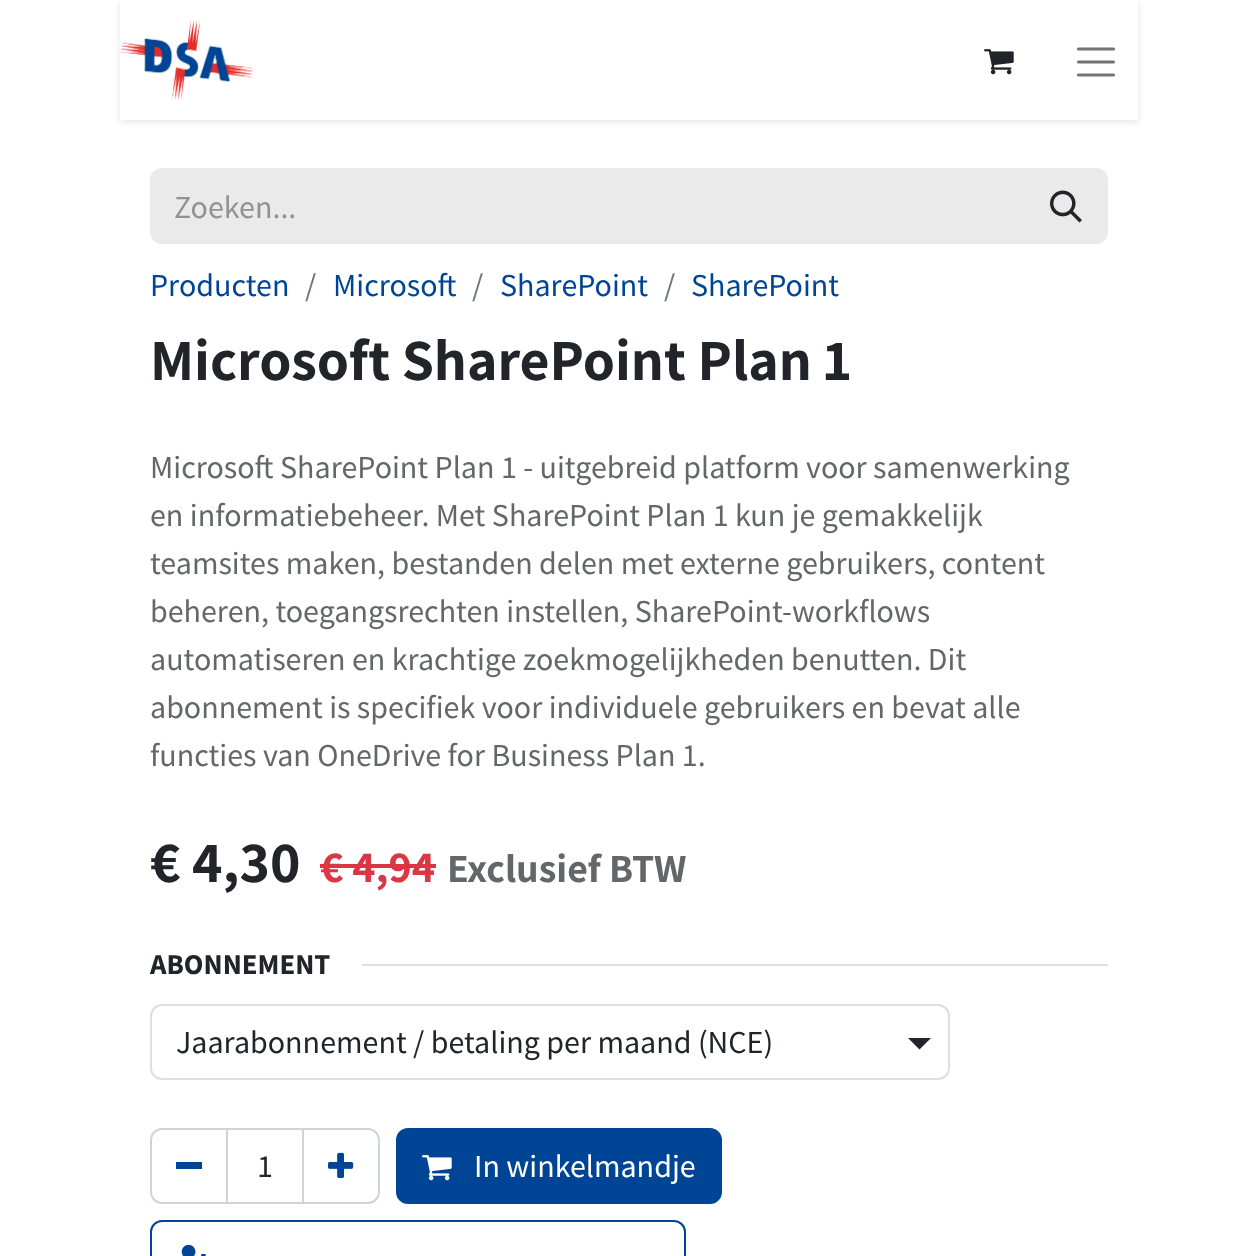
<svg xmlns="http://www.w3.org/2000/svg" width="1258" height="1256">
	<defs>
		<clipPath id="clip1"><path d="M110 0H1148V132H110ZM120 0H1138V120H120Z" clip-rule="evenodd" /></clipPath>
	</defs>
	<rect width="100%" height="100%" fill="#FFFFFF" />
	<g clip-path="url(#clip1)">
		<rect x="120" y="2" width="1018" height="120" fill="#000000" fill-opacity="0.1" filter="blur(3px)" />
	</g>
	<image x="120" y="20" width="134" height="80" href="assets/img1.png" />
	<image x="984" y="49" width="30" height="26" href="assets/img2.png" />
	<path d="M1078.5 49H1113.5M1078.5 62H1113.5M1078.5 75H1113.5" fill="none" stroke="#737373" stroke-width="3.2" stroke-linecap="round" />
	<path d="M162 168H1026V244H162C155.5 244 150 238.5 150 232V180C150 173.5 155.5 168 162 168Z" fill="#EAEAEA" />
	<text x="174" y="218" font-family="Source Sans Pro" font-size="32" fill="#909294">Zoeken...</text>
	<path d="M1025 169H1096C1102 169 1107 174 1107 180V232C1107 238 1102 243 1096 243H1025Z" fill="#EAEAEA" stroke="#EAEAEA" stroke-width="2" />
	<image x="1050" y="190" width="32" height="33" href="assets/img3.png" />
	<text x="150" y="296" font-family="Source Sans Pro" font-size="32" fill="#004595">Producten</text>
	<text x="305" y="296" font-family="Source Sans Pro" font-size="32" fill="#6C757D">/</text>
	<text x="333" y="296" font-family="Source Sans Pro" font-size="32" fill="#004595">Microsoft</text>
	<text x="472" y="296" font-family="Source Sans Pro" font-size="32" fill="#6C757D">/</text>
	<text x="500" y="296" font-family="Source Sans Pro" font-size="32" fill="#004595">SharePoint</text>
	<text x="664" y="296" font-family="Source Sans Pro" font-size="32" fill="#6C757D">/</text>
	<text x="691" y="296" font-family="Source Sans Pro" font-size="32" fill="#004595">SharePoint</text>
	<text x="150" y="380" font-family="Assistant" font-size="58.25" font-weight="700" fill="#212529">Microsoft SharePoint Plan 1</text>
	<g font-family="Source Sans Pro" font-size="32" fill="#646669">
		<text x="150" y="478">Microsoft SharePoint Plan 1 - uitgebreid platform voor samenwerking</text>
		<text x="150" y="526">en informatiebeheer. Met SharePoint Plan 1 kun je gemakkelijk</text>
		<text x="150" y="574">teamsites maken, bestanden delen met externe gebruikers, content</text>
		<text x="150" y="622">beheren, toegangsrechten instellen, SharePoint-workflows</text>
		<text x="150" y="670">automatiseren en krachtige zoekmogelijkheden benutten. Dit</text>
		<text x="150" y="718">abonnement is specifiek voor individuele gebruikers en bevat alle</text>
		<text x="150" y="766">functies van OneDrive for Business Plan 1.</text>
	</g>
	<text x="150" y="882" font-family="Assistant" font-size="58.25" font-weight="700" fill="#212529">€ 4,30</text>
	<text x="320" y="882" font-family="Assistant" font-size="44.5" font-weight="700" fill="#DC3545">€ 4,94</text>
	<rect x="320" y="864" width="116" height="4" fill="#DC3545" />
	<text x="447" y="882" font-family="Assistant" font-size="40" font-weight="700" fill="#646669">Exclusief BTW</text>
	<text x="150" y="974" font-family="Source Sans Pro" font-size="28.75" font-weight="700" fill="#212529">ABONNEMENT</text>
	<rect x="362" y="964" width="746" height="2" fill="#DEDEDF" />
	<path d="M908 1038H931L919.5 1049.5Z" fill="#212529" />
	<rect x="151" y="1005" width="798" height="74" rx="11" fill="none" stroke="#DEDEDF" stroke-width="2" />
	<text x="176" y="1053" font-family="Source Sans Pro" font-size="32" fill="#212529">Jaarabonnement / betaling per maand (NCE)</text>
	<rect x="227" y="1129" width="76" height="74" fill="none" stroke="#CED4DA" stroke-width="2" />
	<path d="M162 1129H227V1203H162C156 1203 151 1198 151 1192V1140C151 1134 156 1129 162 1129Z" fill="none" stroke="#CED4DA" stroke-width="2" />
	<rect x="176" y="1162" width="26" height="7" fill="#004595" />
	<text x="257" y="1177" font-family="Source Sans Pro" font-size="32" fill="#212529">1</text>
	<path d="M303 1129H368C374 1129 379 1134 379 1140V1192C379 1198 374 1203 368 1203H303Z" fill="none" stroke="#CED4DA" stroke-width="2" />
	<image x="328" y="1152" width="26" height="26" href="assets/img4.png" />
	<rect x="397" y="1129" width="324" height="74" rx="11" fill="#004595" stroke="#004595" stroke-width="2" />
	<image x="422" y="1155" width="30" height="26" href="assets/img5.png" />
	<text x="474" y="1177" font-family="Source Sans Pro" font-size="32" fill="#FFFFFF">In winkelmandje</text>
	<rect x="151" y="1221" width="534" height="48" rx="11" fill="none" stroke="#004595" stroke-width="2" />
	<image x="181" y="1244" width="25" height="12" href="assets/img6.png" />
</svg>
